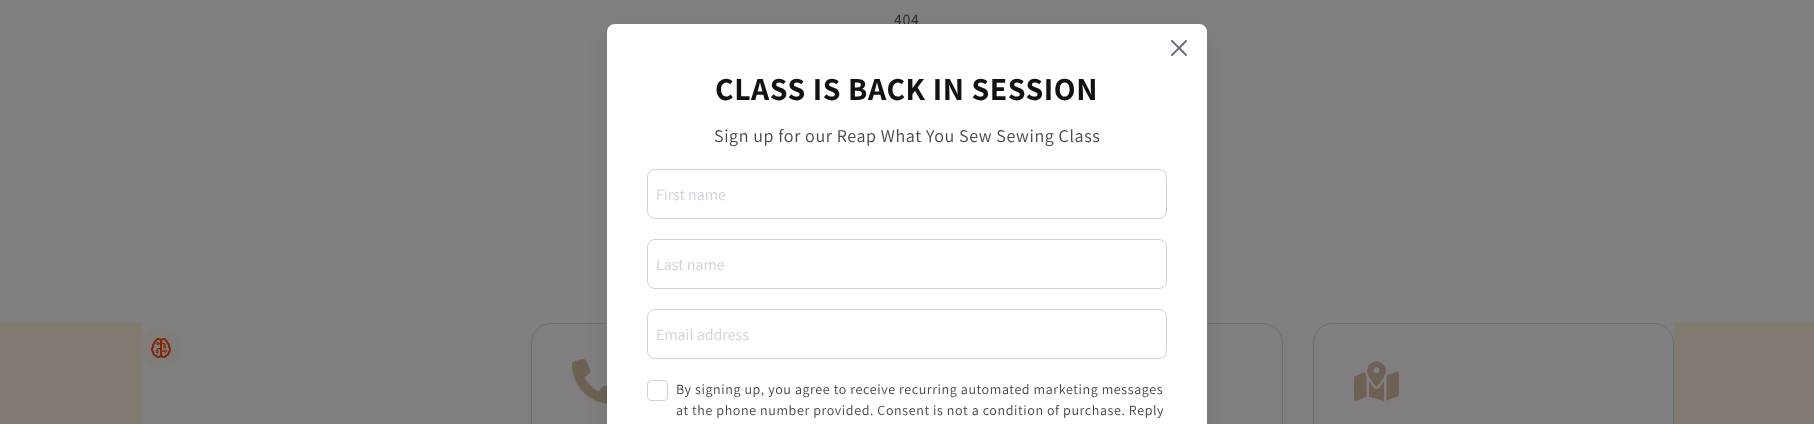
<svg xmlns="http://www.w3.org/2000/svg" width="1814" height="424">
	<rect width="100%" height="100%" fill="#808080" />
	<text x="894" y="25" font-family="Assistant" font-size="16" letter-spacing="0.6" fill="#272727">404</text>
	<rect x="0" y="323" width="1814" height="101" fill="#807A71" />
	<rect x="141" y="323" width="1533" height="101" fill="#807E7E" />
	<rect x="531.5" y="323.5" width="360" height="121" rx="19.5" fill="none" stroke="#686F7A" />
	<image x="572" y="359" width="35" height="45" href="assets/img3.png" />
	<rect x="922.5" y="323.5" width="360" height="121" rx="19.5" fill="none" stroke="#686F7A" />
	<rect x="607" y="32" width="600" height="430" rx="8" fill="#121127" fill-opacity="0.1" filter="blur(10px)" />
	<path d="M615 24H1199C1203.5 24 1207 27.5 1207 32V424H607V32C607 27.5 610.5 24 615 24Z" fill="#FFFFFF" />
	<image x="1171" y="40" width="16" height="16" href="assets/img1.png" />
	<text x="715" y="100" font-family="Assistant" font-size="32" font-weight="700" letter-spacing="0.6" fill="#121212">CLASS IS BACK IN SESSION</text>
	<text x="714" y="142" font-family="Assistant" font-size="18" letter-spacing="0.6" fill="#454545">Sign up for our Reap What You Sew Sewing Class</text>
	<rect x="647.5" y="169.5" width="519" height="49" rx="7.5" fill="none" stroke="#D1D1DB" />
	<text x="656" y="200" font-family="Assistant" font-size="16" fill="#D1D1DB">First name</text>
	<rect x="647.5" y="239.5" width="519" height="49" rx="7.5" fill="none" stroke="#D1D1DB" />
	<text x="656" y="270" font-family="Assistant" font-size="16" fill="#D1D1DB">Last name</text>
	<rect x="647.5" y="309.5" width="519" height="49" rx="7.5" fill="none" stroke="#D1D1DB" />
	<text x="656" y="340" font-family="Assistant" font-size="16" fill="#D1D1DB">Email address</text>
	<rect x="647.5" y="380.5" width="20" height="20" rx="3.5" fill="none" stroke="#D1D1DB" />
	<g font-family="Assistant" font-size="14" letter-spacing="0.6" fill="#454545">
		<text x="676" y="394">By signing up, you agree to receive recurring automated marketing messages</text>
		<text x="676" y="415">at the phone number provided. Consent is not a condition of purchase. Reply</text>
	</g>
	<circle cx="161" cy="348" r="20" fill="#807C7A" />
	<image x="151" y="338" width="20" height="20" href="assets/img2.png" />
	<rect x="1313.5" y="323.5" width="360" height="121" rx="19.5" fill="none" stroke="#686F7A" />
	<image x="1354" y="361" width="45" height="40" href="assets/img4.png" />
</svg>
